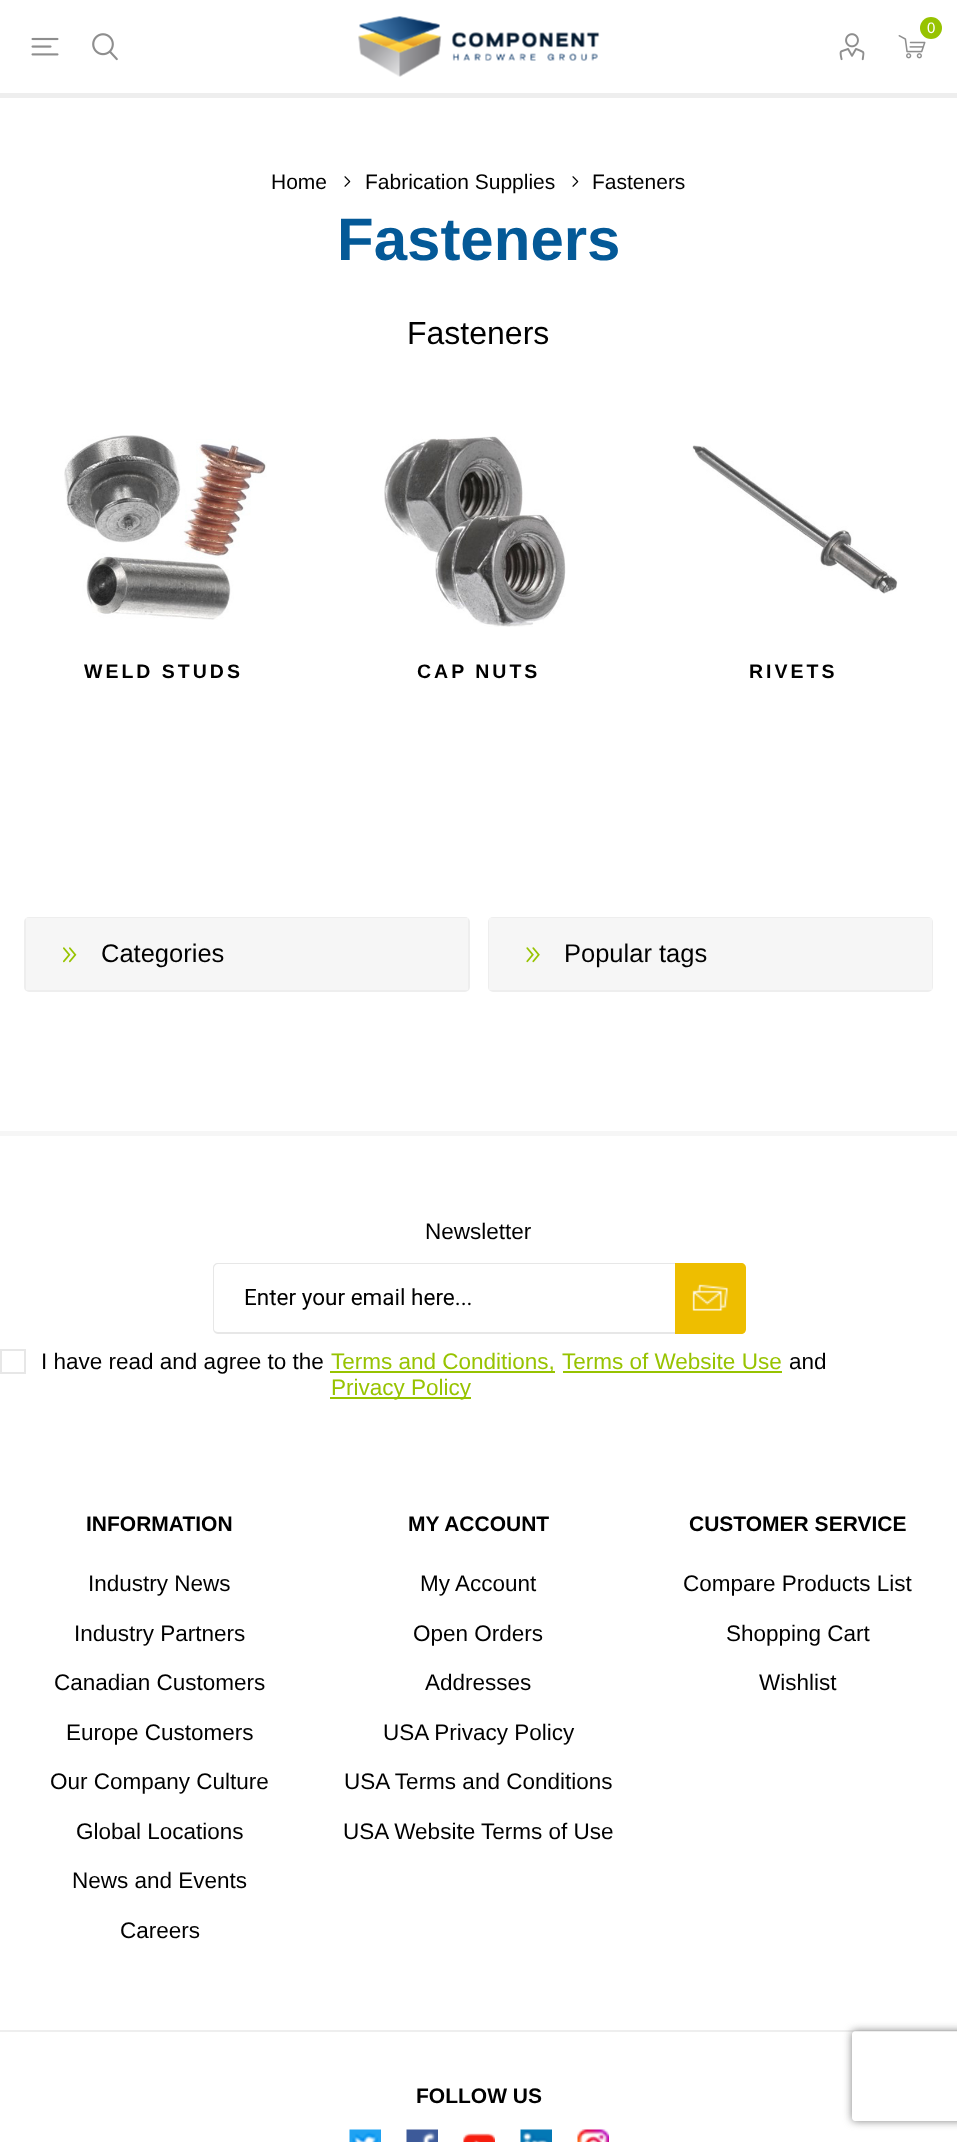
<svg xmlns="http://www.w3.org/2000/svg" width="957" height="2142">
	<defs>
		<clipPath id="clip1"><path d="M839 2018H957V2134H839ZM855 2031H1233C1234.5 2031 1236 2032.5 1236 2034V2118C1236 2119.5 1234.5 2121 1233 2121H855C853.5 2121 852 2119.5 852 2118V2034C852 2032.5 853.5 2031 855 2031Z" clip-rule="evenodd" /></clipPath>
	</defs>
	<rect width="100%" height="100%" fill="#FFFFFF" />
	<rect x="0" y="93" width="957" height="5" fill="#EEEEEE" />
	<image x="358" y="16" width="242" height="61" href="assets/img1.png" />
	<image x="898" y="35" width="28" height="24" href="assets/img2.png" />
	<circle cx="931" cy="28" r="11" fill="#97C300" />
	<text x="927" y="33" font-family="Liberation Sans" font-size="15" fill="#FFFFFF">0</text>
	<image x="31" y="37" width="28" height="19" href="assets/img3.png" />
	<image x="92" y="33" width="26" height="28" href="assets/img4.png" />
	<image x="839" y="33" width="26" height="28" href="assets/img5.png" />
	<text x="271" y="189" font-family="Liberation Sans" font-size="21" fill="#000000">Home</text>
	<image x="344" y="176" width="7" height="11" href="assets/img6.png" />
	<text x="365" y="189" font-family="Liberation Sans" font-size="21" fill="#000000">Fabrication Supplies</text>
	<image x="572" y="176" width="7" height="11" href="assets/img6.png" />
	<text x="592" y="189" font-family="Liberation Sans" font-size="21" fill="#000000">Fasteners</text>
	<text x="337" y="260" font-family="Liberation Sans" font-size="60" font-weight="700" fill="#045997">Fasteners</text>
	<text x="407" y="344" font-family="Liberation Sans" font-size="32" fill="#000000">Fasteners</text>
	<image x="64" y="435" width="203" height="185" href="assets/img7.png" />
	<text x="84" y="678" font-family="Liberation Sans" font-size="19.5" font-weight="700" letter-spacing="3" fill="#000000">WELD STUDS</text>
	<image x="384" y="436" width="182" height="191" href="assets/img8.png" />
	<text x="417" y="678" font-family="Liberation Sans" font-size="19.5" font-weight="700" letter-spacing="3" fill="#000000">CAP NUTS</text>
	<image x="692" y="445" width="206" height="149" href="assets/img9.png" />
	<text x="749" y="678" font-family="Liberation Sans" font-size="19.5" font-weight="700" letter-spacing="3" fill="#000000">RIVETS</text>
	<rect x="25" y="918" width="444" height="73" rx="4" fill="none" stroke="#EEEEEE" stroke-width="2" />
	<rect x="26" y="918" width="442" height="72" fill="#F6F6F6" />
	<image x="63" y="947" width="14" height="16" href="assets/img10.png" />
	<text x="101" y="962" font-family="Liberation Sans" font-size="25.5" fill="#000000">Categories</text>
	<rect x="489" y="918" width="443" height="73" rx="4" fill="none" stroke="#EEEEEE" stroke-width="2" />
	<rect x="489" y="918" width="443" height="72" fill="#F6F6F6" />
	<image x="526" y="947" width="14" height="16" href="assets/img11.png" />
	<text x="564" y="962" font-family="Liberation Sans" font-size="25.5" fill="#000000">Popular tags</text>
	<rect x="0" y="1131" width="957" height="5" fill="#F6F6F6" />
	<text x="425" y="1239" font-family="Liberation Sans" font-size="22.5" fill="#000000">Newsletter</text>
	<path d="M218 1263H675V1334H218C215 1334 213 1331 213 1329V1268C213 1265 215 1263 218 1263ZM218 1264H675V1332H218C216 1332 214 1331 214 1329V1268C214 1266 216 1264 218 1264Z" fill="#E7E7E7" fill-rule="evenodd" />
	<text x="244" y="1305" font-family="Roboto" font-size="22.5" fill="#000000">Enter your email here...</text>
	<path d="M675 1263H741C744 1263 746 1265 746 1268V1329C746 1332 744 1334 741 1334H675Z" fill="#EEBE00" />
	<image x="692" y="1284" width="36" height="27" href="assets/img12.png" />
	<rect x="1" y="1350" width="24" height="23" fill="none" stroke="#E7E7E7" stroke-width="2" />
	<text x="41" y="1369" font-family="Liberation Sans" font-size="22.5" fill="#000000">I have read and agree to the</text>
	<rect x="330" y="1371" width="225" height="2" fill="#97C300" />
	<g font-family="Liberation Sans" font-size="22.5" fill="#97C300">
		<text x="331" y="1369">Terms and Conditions,</text>
		<text x="562" y="1369">Terms of Website Use</text>
	</g>
	<rect x="563" y="1371" width="219" height="2" fill="#97C300" />
	<text x="789" y="1369" font-family="Liberation Sans" font-size="22.5" fill="#000000">and</text>
	<rect x="330" y="1397" width="141" height="2" fill="#97C300" />
	<text x="331" y="1395" font-family="Liberation Sans" font-size="22.5" fill="#97C300">Privacy Policy</text>
	<text x="86" y="1531" font-family="Liberation Sans" font-size="21" font-weight="700" fill="#000000">INFORMATION</text>
	<g font-family="Liberation Sans" font-size="22.5" fill="#000000">
		<text x="88" y="1591">Industry News</text>
		<text x="74" y="1641">Industry Partners</text>
		<text x="54" y="1690">Canadian Customers</text>
		<text x="66" y="1740">Europe Customers</text>
		<text x="50" y="1789">Our Company Culture</text>
		<text x="76" y="1839">Global Locations</text>
		<text x="72" y="1888">News and Events</text>
		<text x="120" y="1938">Careers</text>
	</g>
	<text x="408" y="1531" font-family="Liberation Sans" font-size="21" font-weight="700" fill="#000000">MY ACCOUNT</text>
	<g font-family="Liberation Sans" font-size="22.5" fill="#000000">
		<text x="420" y="1591">My Account</text>
		<text x="413" y="1641">Open Orders</text>
		<text x="425" y="1690">Addresses</text>
		<text x="383" y="1740">USA Privacy Policy</text>
		<text x="344" y="1789">USA Terms and Conditions</text>
		<text x="343" y="1839">USA Website Terms of Use</text>
	</g>
	<text x="689" y="1531" font-family="Liberation Sans" font-size="21" font-weight="700" fill="#000000">CUSTOMER SERVICE</text>
	<g font-family="Liberation Sans" font-size="22.5" fill="#000000">
		<text x="683" y="1591">Compare Products List</text>
		<text x="726" y="1641">Shopping Cart</text>
		<text x="759" y="1690">Wishlist</text>
	</g>
	<rect x="0" y="2030" width="957" height="2" fill="#EEEEEE" />
	<text x="416" y="2103" font-family="Liberation Sans" font-size="21" font-weight="700" fill="#000000">FOLLOW US</text>
	<image x="349" y="2129" width="32" height="13" href="assets/img13.png" />
	<image x="406" y="2129" width="32" height="13" href="assets/img14.png" />
	<image x="463" y="2133" width="32" height="9" href="assets/img15.png" />
	<image x="520" y="2129" width="32" height="13" href="assets/img16.png" />
	<image x="577" y="2129" width="32" height="13" href="assets/img17.png" />
	<g clip-path="url(#clip1)">
		<rect x="852" y="2031" width="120" height="90" rx="3" fill="#808080" filter="blur(4px)" />
	</g>
</svg>
